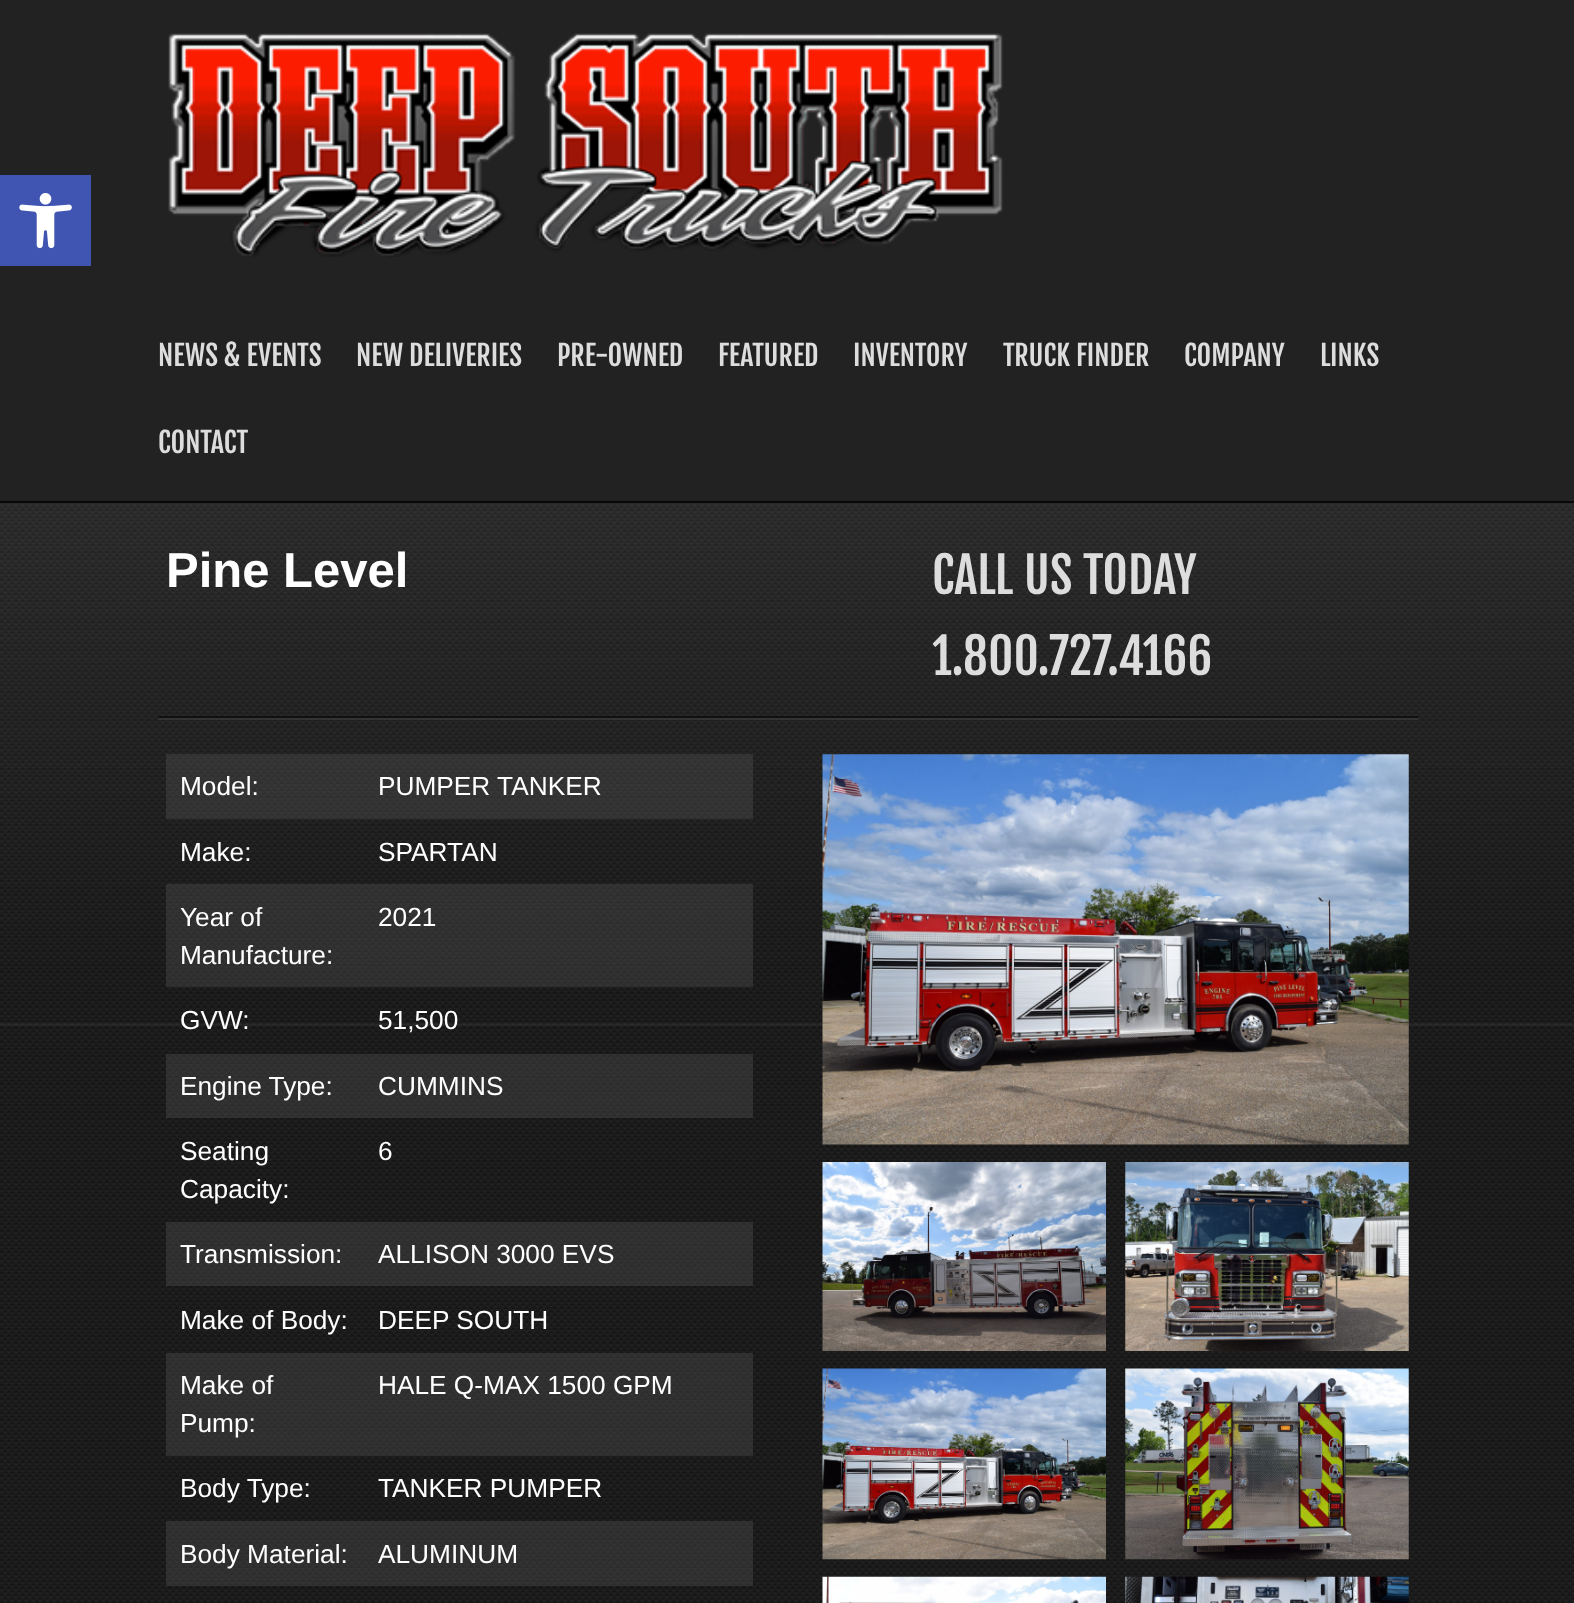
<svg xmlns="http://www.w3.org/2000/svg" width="1574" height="1603">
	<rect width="100%" height="100%" fill="#FFFFFF" />
	<image x="0" y="503" width="1574" height="1100" href="assets/img1.png" />
	<rect x="0" y="0" width="1574" height="501" fill="#222222" />
	<rect x="0" y="175" width="91" height="91" fill="#4054B2" />
	<image x="19" y="193" width="53" height="56" href="assets/img2.png" />
	<rect x="0" y="501" width="1574" height="2" fill="#080808" />
	<image x="168" y="33" width="835" height="224" href="assets/img3.png" />
	<g font-family="Fjalla One" font-size="28" fill="#DDDDDD">
		<text x="158" y="366">NEWS &amp; EVENTS</text>
		<text x="356" y="366">NEW DELIVERIES</text>
		<text x="557" y="366">PRE-OWNED</text>
		<text x="718" y="366">FEATURED</text>
		<text x="853" y="366">INVENTORY</text>
		<text x="1003" y="366">TRUCK FINDER</text>
		<text x="1184" y="366">COMPANY</text>
		<text x="1320" y="366">LINKS</text>
		<text x="158" y="453">CONTACT</text>
	</g>
	<image x="0" y="503" width="1574" height="523" href="assets/img4.png" />
	<text x="166" y="587" font-family="Liberation Sans" font-size="49" font-weight="700" fill="#FFFFFF">Pine Level</text>
	<g font-family="Fjalla One" font-size="49" fill="#DDDDDD">
		<text x="932" y="594">CALL US TODAY</text>
		<text x="932" y="675">1.800.727.4166</text>
	</g>
	<rect x="158" y="716" width="1260" height="2" fill="#111111" />
	<rect x="158" y="718" width="1260" height="2" fill="#333333" />
	<rect x="166" y="754" width="198" height="65" fill="#505050" fill-opacity="0.4" />
	<text x="180" y="795" font-family="Liberation Sans" font-size="26.25" fill="#FFFFFF">Model:</text>
	<rect x="364" y="754" width="389" height="65" fill="#505050" fill-opacity="0.4" />
	<g font-family="Liberation Sans" font-size="26.25" fill="#FFFFFF">
		<text x="378" y="795">PUMPER TANKER</text>
		<text x="180" y="861">Make:</text>
		<text x="378" y="861">SPARTAN</text>
	</g>
	<rect x="166" y="884" width="198" height="103" fill="#505050" fill-opacity="0.4" />
	<g font-family="Liberation Sans" font-size="26.25" fill="#FFFFFF">
		<text x="180" y="926">Year of</text>
		<text x="180" y="964">Manufacture:</text>
	</g>
	<rect x="364" y="884" width="389" height="103" fill="#505050" fill-opacity="0.4" />
	<g font-family="Liberation Sans" font-size="26.25" fill="#FFFFFF">
		<text x="378" y="926">2021</text>
		<text x="180" y="1029">GVW:</text>
		<text x="378" y="1029">51,500</text>
	</g>
	<rect x="166" y="1054" width="198" height="64" fill="#505050" fill-opacity="0.4" />
	<text x="180" y="1095" font-family="Liberation Sans" font-size="26.25" fill="#FFFFFF">Engine Type:</text>
	<rect x="364" y="1054" width="389" height="64" fill="#505050" fill-opacity="0.4" />
	<g font-family="Liberation Sans" font-size="26.25" fill="#FFFFFF">
		<text x="378" y="1095">CUMMINS</text>
		<text x="180" y="1160">Seating</text>
		<text x="180" y="1198">Capacity:</text>
		<text x="378" y="1160">6</text>
	</g>
	<rect x="166" y="1222" width="198" height="64" fill="#505050" fill-opacity="0.4" />
	<text x="180" y="1263" font-family="Liberation Sans" font-size="26.25" fill="#FFFFFF">Transmission:</text>
	<rect x="364" y="1222" width="389" height="64" fill="#505050" fill-opacity="0.4" />
	<g font-family="Liberation Sans" font-size="26.25" fill="#FFFFFF">
		<text x="378" y="1263">ALLISON 3000 EVS</text>
		<text x="180" y="1329">Make of Body:</text>
		<text x="378" y="1329">DEEP SOUTH</text>
	</g>
	<rect x="166" y="1353" width="198" height="103" fill="#505050" fill-opacity="0.4" />
	<g font-family="Liberation Sans" font-size="26.25" fill="#FFFFFF">
		<text x="180" y="1394">Make of</text>
		<text x="180" y="1432">Pump:</text>
	</g>
	<rect x="364" y="1353" width="389" height="103" fill="#505050" fill-opacity="0.4" />
	<g font-family="Liberation Sans" font-size="26.25" fill="#FFFFFF">
		<text x="378" y="1394">HALE Q-MAX 1500 GPM</text>
		<text x="180" y="1497">Body Type:</text>
		<text x="378" y="1497">TANKER PUMPER</text>
	</g>
	<rect x="166" y="1521" width="198" height="65" fill="#505050" fill-opacity="0.4" />
	<text x="180" y="1563" font-family="Liberation Sans" font-size="26.25" fill="#FFFFFF">Body Material:</text>
	<rect x="364" y="1521" width="389" height="65" fill="#505050" fill-opacity="0.4" />
	<text x="378" y="1563" font-family="Liberation Sans" font-size="26.25" fill="#FFFFFF">ALUMINUM</text>
	<image x="822" y="754" width="587" height="391" href="assets/img5.png" />
	<image x="822" y="1162" width="284" height="189" href="assets/img6.png" />
	<image x="1125" y="1162" width="284" height="189" href="assets/img7.png" />
	<image x="822" y="1368" width="284" height="192" href="assets/img8.png" />
	<image x="1125" y="1368" width="284" height="192" href="assets/img9.png" />
	<image x="822" y="1576" width="284" height="27" href="assets/img10.png" />
	<image x="1125" y="1576" width="284" height="27" href="assets/img11.png" />
</svg>
